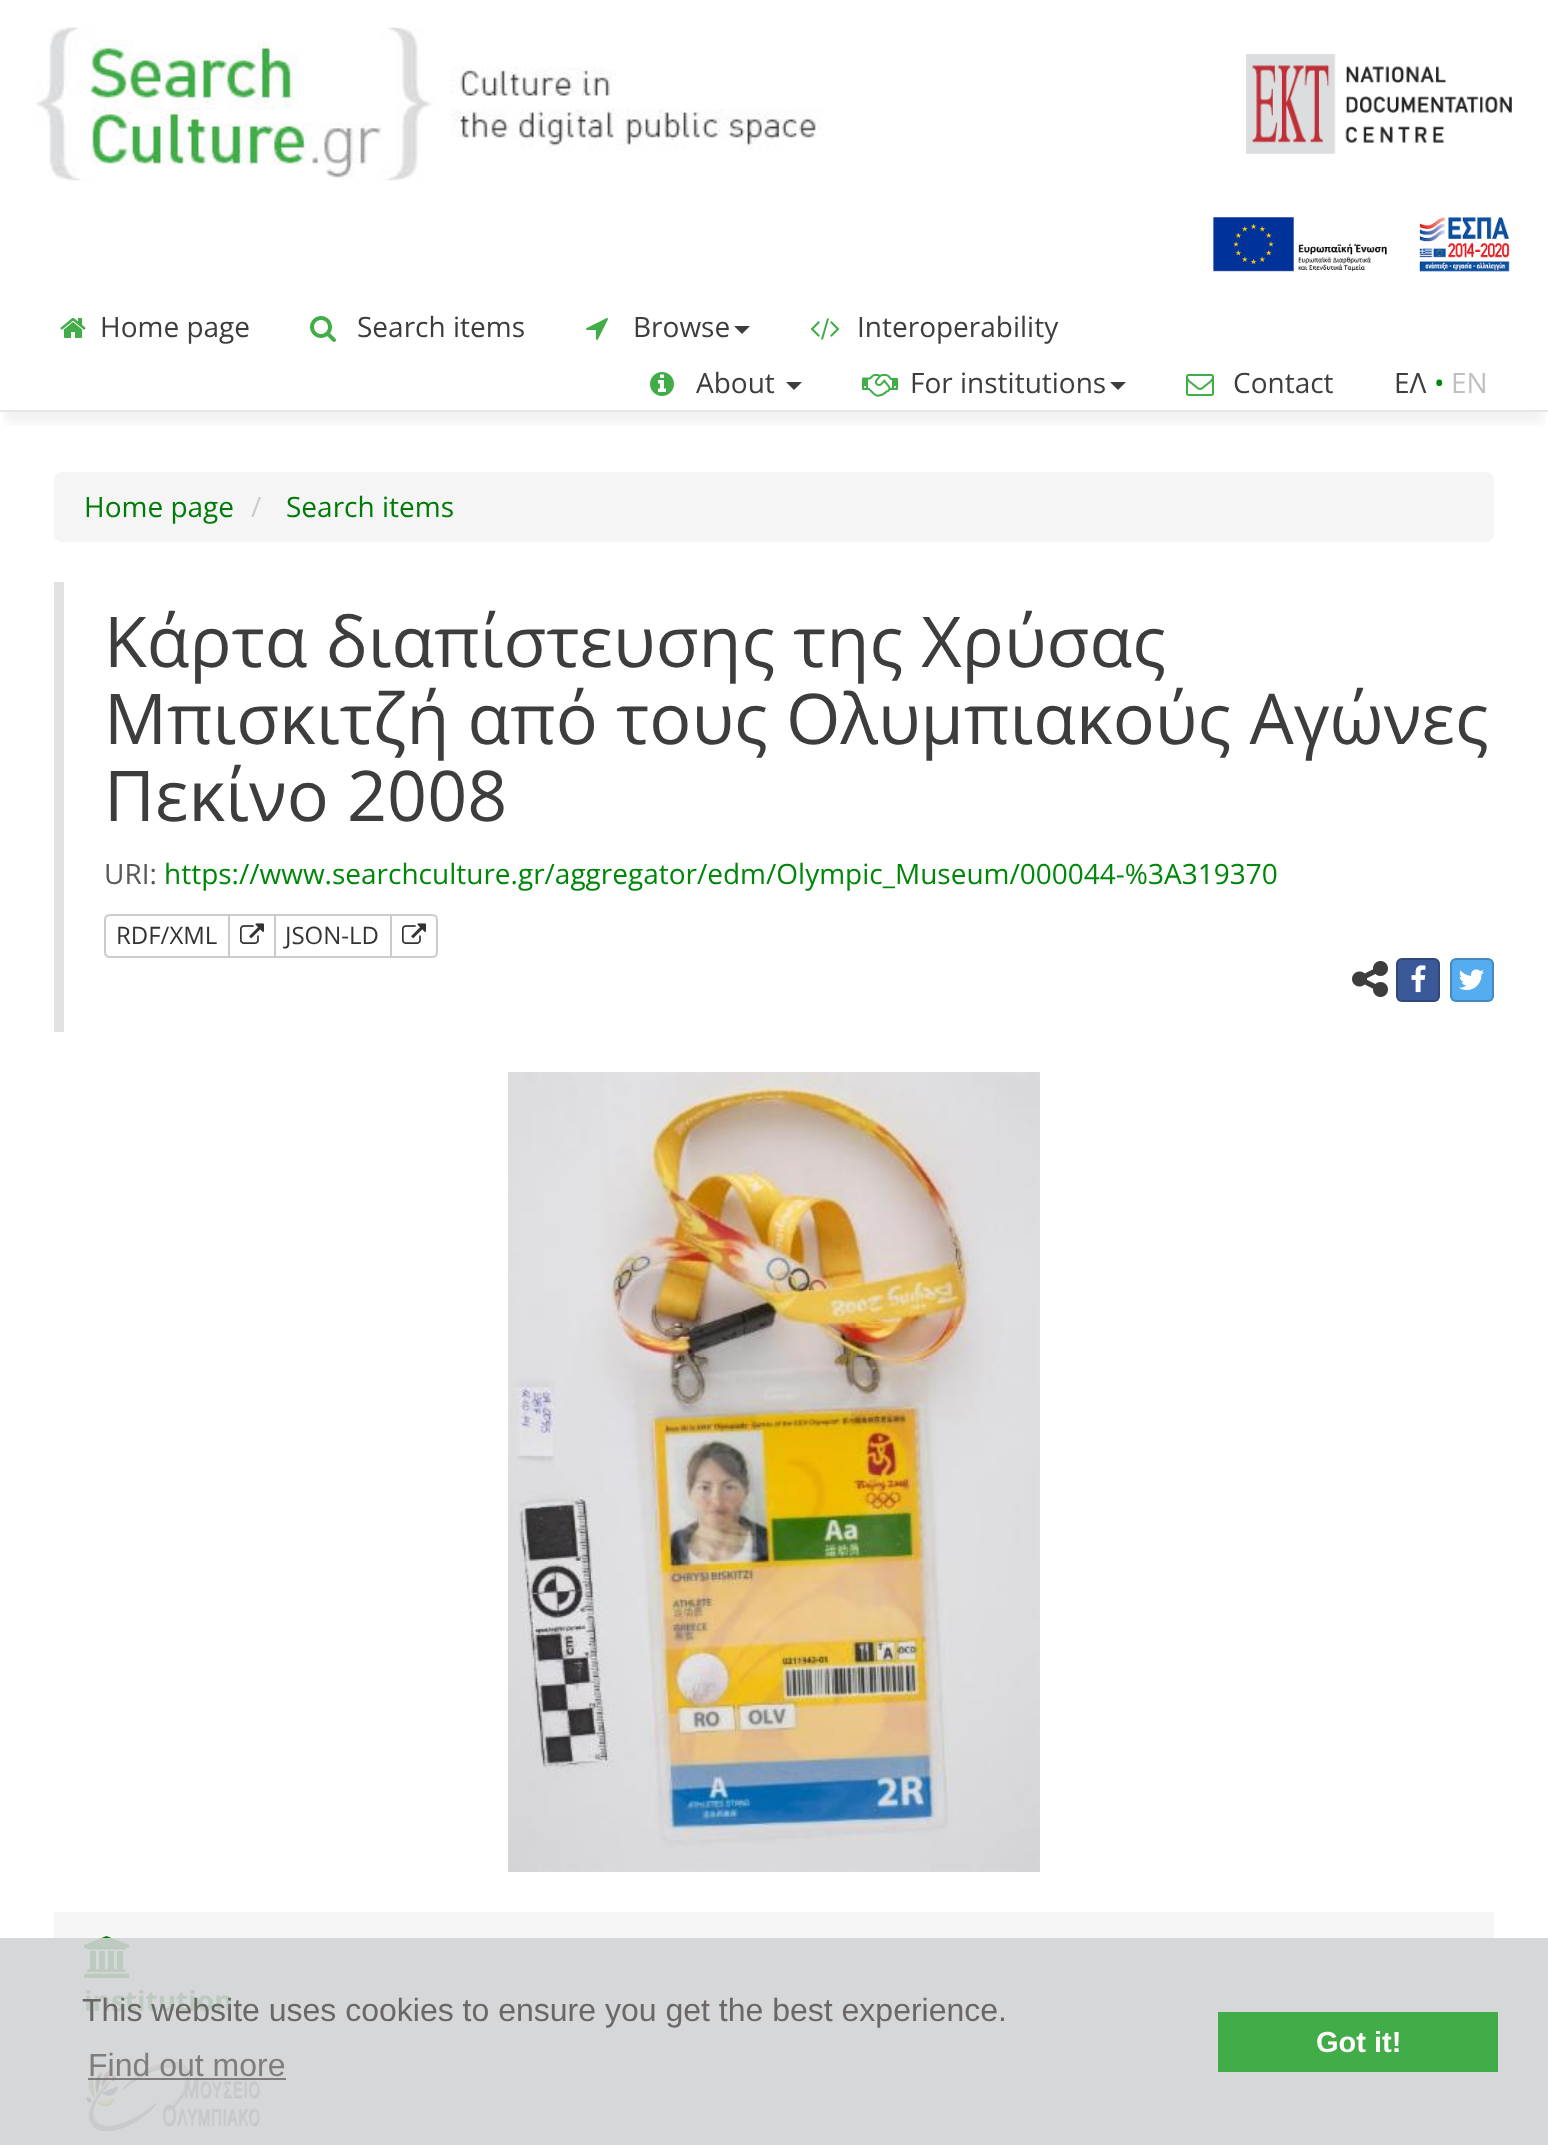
<svg xmlns="http://www.w3.org/2000/svg" width="1548" height="2145">
	<defs>
		<clipPath id="clip1"><rect x="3" y="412" width="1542" height="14" /></clipPath>
	</defs>
	<rect width="100%" height="100%" fill="#FFFFFF" />
	<rect x="0" y="1938" width="1548" height="207" fill="#D6D7D8" />
	<image x="36" y="26" width="788" height="155" href="assets/img1.png" />
	<image x="1246" y="54" width="266" height="100" href="assets/img2.png" />
	<image x="1213" y="217" width="297" height="55" href="assets/img3.png" />
	<g clip-path="url(#clip1)">
		<rect x="4" y="320" width="1540" height="104" fill="#000000" fill-opacity="0.05" filter="blur(6px)" />
	</g>
	<rect x="0" y="410" width="1548" height="2" fill="#E6E6E6" />
	<image x="60" y="318" width="26" height="20" href="assets/img4.png" />
	<text x="100" y="337" font-family="Open Sans" font-size="28" fill="#3D3D3D">Home page</text>
	<image x="310" y="316" width="26" height="26" href="assets/img5.png" />
	<text x="357" y="337" font-family="Open Sans" font-size="28" fill="#3D3D3D">Search items</text>
	<image x="586" y="318" width="22" height="22" href="assets/img6.png" />
	<text x="633" y="337" font-family="Open Sans" font-size="28" fill="#3D3D3D">Browse</text>
	<path d="M734 326H750L742 334Z" fill="#3D3D3D" />
	<image x="810" y="318" width="30" height="22" href="assets/img7.png" />
	<text x="857" y="337" font-family="Open Sans" font-size="28" fill="#3D3D3D">Interoperability</text>
	<image x="650" y="372" width="24" height="24" href="assets/img8.png" />
	<text x="696" y="393" font-family="Open Sans" font-size="28" fill="#3D3D3D">About</text>
	<path d="M786 382H802L794 390Z" fill="#3D3D3D" />
	<image x="862" y="374" width="36" height="23" href="assets/img9.png" />
	<text x="910" y="393" font-family="Open Sans" font-size="28" fill="#3D3D3D">For institutions</text>
	<path d="M1110 382H1126L1118 390Z" fill="#3D3D3D" />
	<image x="1186" y="374" width="28" height="22" href="assets/img10.png" />
	<g font-family="Open Sans" font-size="28" fill="#3D3D3D">
		<text x="1233" y="393">Contact</text>
		<text x="1394" y="393">ΕΛ</text>
	</g>
	<text x="1434" y="393" font-family="Open Sans" font-size="28" fill="#00870A">•</text>
	<text x="1451" y="393" font-family="Open Sans" font-size="28" fill="#C0C0C0">ΕΝ</text>
	<rect x="54" y="472" width="1440" height="70" rx="8" fill="#F5F5F5" />
	<text x="84" y="517" font-family="Open Sans" font-size="28" fill="#007A08">Home page</text>
	<text x="251" y="517" font-family="Open Sans" font-size="28" fill="#CCCCCC">/</text>
	<text x="286" y="517" font-family="Open Sans" font-size="28" fill="#007A08">Search items</text>
	<rect x="54" y="582" width="10" height="450" fill="#E1E1E1" />
	<g font-family="Open Sans" font-size="70" fill="#3D3D3D">
		<text x="104" y="667">Κάρτα διαπίστευσης της Χρύσας</text>
		<text x="104" y="744">Μπισκιτζή από τους Ολυμπιακούς Αγώνες</text>
		<text x="104" y="821">Πεκίνο 2008</text>
	</g>
	<text x="104" y="884" font-family="Open Sans" font-size="28" fill="#595959">URI:</text>
	<text x="164" y="884" font-family="Open Sans" font-size="28" fill="#00870A">https://www.searchculture.gr/aggregator/edm/Olympic_Museum/000044-%3A319370</text>
	<path d="M110 915H229V957H110C107 957 105 955 105 952V920C105 917 107 915 110 915Z" fill="none" stroke="#CCCCCC" stroke-width="2" />
	<text x="116" y="944" font-family="Open Sans" font-size="24" fill="#333333">RDF/XML</text>
	<rect x="229" y="915" width="46" height="42" fill="none" stroke="#CCCCCC" stroke-width="2" />
	<image x="240" y="923" width="24" height="21" href="assets/img11.png" />
	<rect x="275" y="915" width="116" height="42" fill="none" stroke="#CCCCCC" stroke-width="2" />
	<text x="285" y="944" font-family="Open Sans" font-size="24" fill="#333333">JSON-LD</text>
	<path d="M391 915H432C435 915 437 917 437 920V952C437 955 435 957 432 957H391Z" fill="#FFFFFF" stroke="#CCCCCC" stroke-width="2" />
	<image x="402" y="923" width="24" height="21" href="assets/img11.png" />
	<image x="1352" y="961" width="36" height="36" href="assets/img12.png" />
	<rect x="1396" y="958" width="44" height="44" rx="6" fill="#3B5998" />
	<rect x="1397" y="959" width="42" height="42" rx="5" fill="none" stroke="#000000" stroke-opacity="0.2" stroke-width="2" />
	<image x="1411" y="965" width="15" height="28" href="assets/img13.png" />
	<rect x="1450" y="958" width="44" height="44" rx="6" fill="#55ACEE" />
	<rect x="1451" y="959" width="42" height="42" rx="5" fill="none" stroke="#000000" stroke-opacity="0.2" stroke-width="2" />
	<image x="1459" y="969" width="25" height="21" href="assets/img14.png" />
	<image x="508" y="1072" width="532" height="800" href="assets/img15.png" />
	<rect x="54" y="1912" width="1440" height="26" fill="#F5F5F5" />
	<image x="84" y="1936" width="45" height="42" href="assets/img16.png" />
	<text x="84" y="2011" font-family="Open Sans" font-size="28" font-weight="700" fill="#BCCAC0">institution</text>
	<image x="84" y="2040" width="180" height="105" href="assets/img17.png" />
	<text x="82" y="2021" font-family="Liberation Sans" font-size="32" fill="#6B6767">This website uses cookies to ensure you get the best experience.</text>
	<text x="88" y="2076" font-family="Liberation Sans" font-size="32" fill="#807D7D">Find out more</text>
	<rect x="88" y="2078" width="198" height="2" fill="#6B6767" fill-opacity="0.8" />
	<rect x="1218" y="2012" width="280" height="60" fill="#41AD49" />
	<text x="1316" y="2052" font-family="Liberation Sans" font-size="29" font-weight="700" fill="#FFF9F9">Got it!</text>
</svg>
